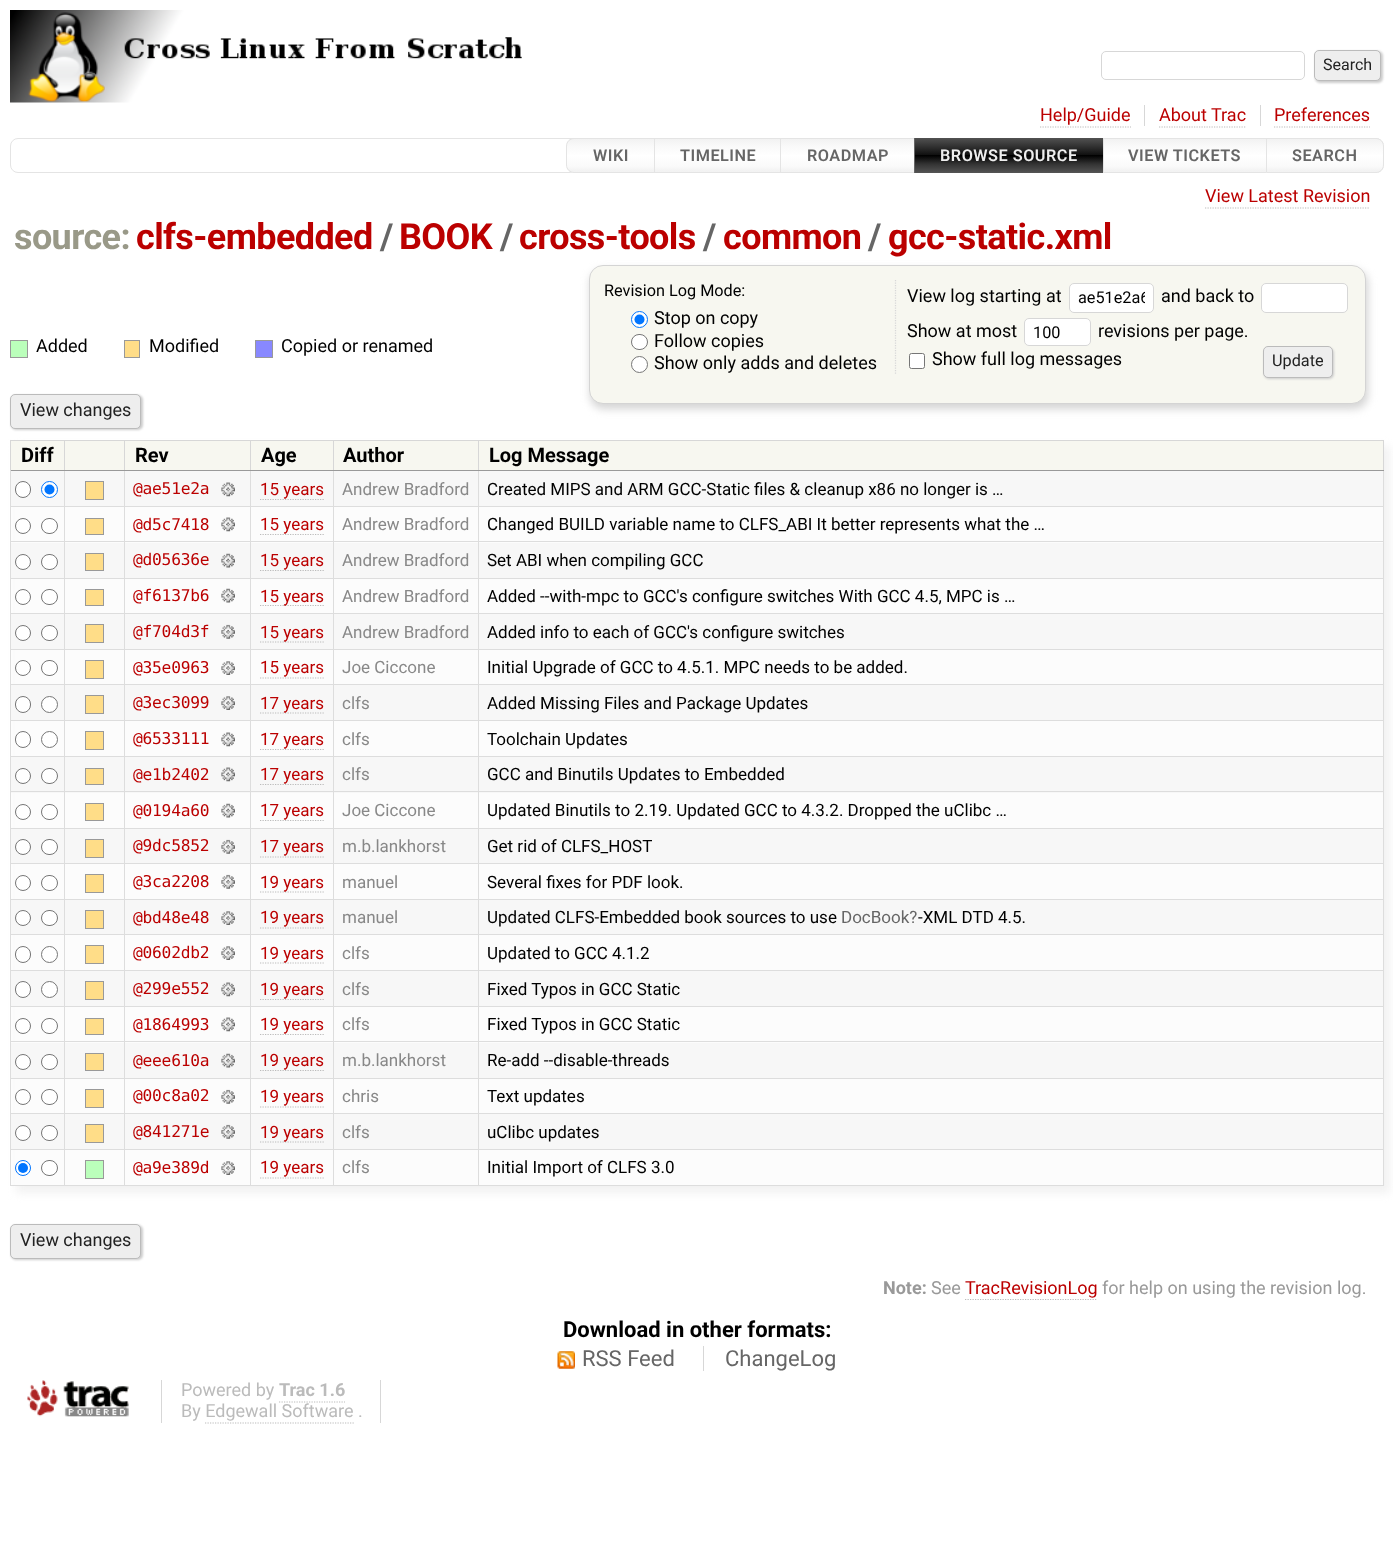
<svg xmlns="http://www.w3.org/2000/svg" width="1393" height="1554">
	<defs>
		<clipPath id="clip1"><path d="M574 138H655V173H574C569.5 173 566 169.5 566 165V146C566 141.5 569.5 138 574 138Z" /></clipPath>
		<linearGradient id="g1" gradientUnits="userSpaceOnUse" x1="611" y1="139" x2="611" y2="171"><stop offset="0" stop-color="#F2F2F2" /><stop offset="0.25" stop-color="#FAFAFA" /><stop offset="0.49" stop-color="#FEFEFE" /><stop offset="0.51" stop-color="#FFFFFF" /><stop offset="0.85" stop-color="#FAFAFA" /><stop offset="1" stop-color="#F2F2F2" /></linearGradient>
		<linearGradient id="g2" gradientUnits="userSpaceOnUse" x1="611" y1="171" x2="611" y2="204"><stop offset="0" stop-color="#F2F2F2" /><stop offset="0.25" stop-color="#FAFAFA" /><stop offset="0.49" stop-color="#FEFEFE" /><stop offset="0.51" stop-color="#FFFFFF" /><stop offset="0.85" stop-color="#FAFAFA" /><stop offset="1" stop-color="#F2F2F2" /></linearGradient>
		<linearGradient id="g3" gradientUnits="userSpaceOnUse" x1="718" y1="139" x2="718" y2="171"><stop offset="0" stop-color="#F2F2F2" /><stop offset="0.25" stop-color="#FAFAFA" /><stop offset="0.49" stop-color="#FEFEFE" /><stop offset="0.51" stop-color="#FFFFFF" /><stop offset="0.85" stop-color="#FAFAFA" /><stop offset="1" stop-color="#F2F2F2" /></linearGradient>
		<linearGradient id="g4" gradientUnits="userSpaceOnUse" x1="718" y1="171" x2="718" y2="204"><stop offset="0" stop-color="#F2F2F2" /><stop offset="0.25" stop-color="#FAFAFA" /><stop offset="0.49" stop-color="#FEFEFE" /><stop offset="0.51" stop-color="#FFFFFF" /><stop offset="0.85" stop-color="#FAFAFA" /><stop offset="1" stop-color="#F2F2F2" /></linearGradient>
		<linearGradient id="g5" gradientUnits="userSpaceOnUse" x1="848" y1="139" x2="848" y2="171"><stop offset="0" stop-color="#F2F2F2" /><stop offset="0.25" stop-color="#FAFAFA" /><stop offset="0.49" stop-color="#FEFEFE" /><stop offset="0.51" stop-color="#FFFFFF" /><stop offset="0.85" stop-color="#FAFAFA" /><stop offset="1" stop-color="#F2F2F2" /></linearGradient>
		<linearGradient id="g6" gradientUnits="userSpaceOnUse" x1="848" y1="171" x2="848" y2="204"><stop offset="0" stop-color="#F2F2F2" /><stop offset="0.25" stop-color="#FAFAFA" /><stop offset="0.49" stop-color="#FEFEFE" /><stop offset="0.51" stop-color="#FFFFFF" /><stop offset="0.85" stop-color="#FAFAFA" /><stop offset="1" stop-color="#F2F2F2" /></linearGradient>
		<linearGradient id="g7" gradientUnits="userSpaceOnUse" x1="1009" y1="137" x2="1009" y2="173"><stop offset="0" stop-color="#555555" /><stop offset="0.25" stop-color="#333333" /><stop offset="0.49" stop-color="#111111" /><stop offset="0.51" stop-color="#000000" /><stop offset="0.75" stop-color="#333333" /><stop offset="1" stop-color="#555555" /></linearGradient>
		<linearGradient id="g8" gradientUnits="userSpaceOnUse" x1="1185" y1="139" x2="1185" y2="171"><stop offset="0" stop-color="#F2F2F2" /><stop offset="0.25" stop-color="#FAFAFA" /><stop offset="0.49" stop-color="#FEFEFE" /><stop offset="0.51" stop-color="#FFFFFF" /><stop offset="0.85" stop-color="#FAFAFA" /><stop offset="1" stop-color="#F2F2F2" /></linearGradient>
		<linearGradient id="g9" gradientUnits="userSpaceOnUse" x1="1185" y1="171" x2="1185" y2="204"><stop offset="0" stop-color="#F2F2F2" /><stop offset="0.25" stop-color="#FAFAFA" /><stop offset="0.49" stop-color="#FEFEFE" /><stop offset="0.51" stop-color="#FFFFFF" /><stop offset="0.85" stop-color="#FAFAFA" /><stop offset="1" stop-color="#F2F2F2" /></linearGradient>
		<clipPath id="clip2"><path d="M1266 138H1376C1380.5 138 1384 141.5 1384 146V165C1384 169.5 1380.5 173 1376 173H1266Z" /></clipPath>
		<linearGradient id="g10" gradientUnits="userSpaceOnUse" x1="1325" y1="139" x2="1325" y2="171"><stop offset="0" stop-color="#F2F2F2" /><stop offset="0.25" stop-color="#FAFAFA" /><stop offset="0.49" stop-color="#FEFEFE" /><stop offset="0.51" stop-color="#FFFFFF" /><stop offset="0.85" stop-color="#FAFAFA" /><stop offset="1" stop-color="#F2F2F2" /></linearGradient>
		<linearGradient id="g11" gradientUnits="userSpaceOnUse" x1="1325" y1="171" x2="1325" y2="204"><stop offset="0" stop-color="#F2F2F2" /><stop offset="0.25" stop-color="#FAFAFA" /><stop offset="0.49" stop-color="#FEFEFE" /><stop offset="0.51" stop-color="#FFFFFF" /><stop offset="0.85" stop-color="#FAFAFA" /><stop offset="1" stop-color="#F2F2F2" /></linearGradient>
		<clipPath id="clip3"><rect x="1078" y="289" width="67" height="19" /></clipPath>
	</defs>
	<rect width="100%" height="100%" fill="#FFFFFF" />
	<image x="10" y="10" width="512" height="93" href="assets/img1.png" />
	<rect x="1101.5" y="51.5" width="203" height="28" rx="4.5" fill="none" stroke="#D7D7D7" />
	<rect x="1315" y="51" width="68" height="32" rx="5" fill="#CCCCCC" filter="blur(1px)" />
	<rect x="1314.5" y="50.5" width="66" height="30" rx="4.5" fill="#EEEEEE" stroke="#BBBBBB" />
	<text x="1323" y="70" font-family="Roboto" font-size="16" fill="#222222">Search</text>
	<rect x="1144" y="105" width="1" height="21" fill="#D7D7D7" />
	<text x="1040" y="121" font-family="Roboto" font-size="18" fill="#BB0000">Help/Guide</text>
	<path d="M1040 127H1131" fill="none" stroke="#BBBBBB" stroke-width="1.2" stroke-dasharray="1.25 1.25" />
	<rect x="1260" y="105" width="1" height="21" fill="#D7D7D7" />
	<text x="1159" y="121" font-family="Roboto" font-size="18" fill="#BB0000">About Trac</text>
	<path d="M1159 127H1246" fill="none" stroke="#BBBBBB" stroke-width="1.2" stroke-dasharray="1.25 1.25" />
	<text x="1274" y="121" font-family="Roboto" font-size="18" fill="#BB0000">Preferences</text>
	<path d="M1274 127H1370" fill="none" stroke="#BBBBBB" stroke-width="1.2" stroke-dasharray="1.25 1.25" />
	<rect x="10.5" y="138.5" width="1373" height="34" rx="7.5" fill="none" stroke="#E4E4E4" />
	<g clip-path="url(#clip1)">
		<rect x="566" y="139" width="88" height="32" fill="url(#g1)" />
		<rect x="566" y="171" width="89" height="2" fill="url(#g2)" />
	</g>
	<path d="M574 138.5H654.5V172.5H574C570 172.5 566.5 169 566.5 165V146C566.5 142 570 138.5 574 138.5Z" fill="none" stroke="#E4E4E4" />
	<text x="593" y="161" font-family="Roboto" font-size="16.25" font-weight="600" letter-spacing="0.5" fill="#666666">WIKI</text>
	<rect x="655" y="139" width="125" height="32" fill="url(#g3)" />
	<rect x="654" y="171" width="129" height="1" fill="url(#g4)" />
	<rect x="654.5" y="138.5" width="128" height="34" fill="none" stroke="#E4E4E4" />
	<text x="680" y="161" font-family="Roboto" font-size="16.25" font-weight="600" letter-spacing="0.5" fill="#666666">TIMELINE</text>
	<rect x="781" y="139" width="133" height="32" fill="url(#g5)" />
	<rect x="780" y="171" width="135" height="1" fill="url(#g6)" />
	<rect x="780.5" y="138.5" width="134" height="34" fill="none" stroke="#E4E4E4" />
	<text x="807" y="161" font-family="Roboto" font-size="16.25" font-weight="600" letter-spacing="0.5" fill="#666666">ROADMAP</text>
	<rect x="914.5" y="138.5" width="189" height="34" fill="none" stroke="#666666" />
	<rect x="915" y="138" width="188" height="35" fill="url(#g7)" />
	<text x="940" y="161" font-family="Roboto" font-size="16.25" font-weight="600" letter-spacing="0.5" fill="#EEEEEE">BROWSE SOURCE</text>
	<rect x="1104" y="139" width="162" height="32" fill="url(#g8)" />
	<rect x="1103" y="171" width="165" height="1" fill="url(#g9)" />
	<rect x="1103.5" y="138.5" width="164" height="34" fill="none" stroke="#E4E4E4" />
	<text x="1128" y="161" font-family="Roboto" font-size="16.25" font-weight="600" letter-spacing="0.5" fill="#666666">VIEW TICKETS</text>
	<g clip-path="url(#clip2)">
		<rect x="1267" y="139" width="117" height="32" fill="url(#g10)" />
		<rect x="1266" y="171" width="118" height="2" fill="url(#g11)" />
	</g>
	<path d="M1266.5 138.5H1376C1380 138.5 1383.5 142 1383.5 146V165C1383.5 169 1380 172.5 1376 172.5H1266.5Z" fill="none" stroke="#E4E4E4" />
	<text x="1292" y="161" font-family="Roboto" font-size="16.25" font-weight="600" letter-spacing="0.5" fill="#666666">SEARCH</text>
	<text x="1205" y="202" font-family="Roboto" font-size="18" fill="#BB0000">View Latest Revision</text>
	<path d="M1205 208H1370" fill="none" stroke="#BBBBBB" stroke-width="1.2" stroke-dasharray="1.25 1.25" />
	<text x="14" y="249" font-family="Roboto" font-size="36" font-weight="700" letter-spacing="-0.6" fill="#999988">source:</text>
	<text x="136" y="249" font-family="Roboto" font-size="36" font-weight="700" letter-spacing="-0.6" fill="#BB0000">clfs-embedded</text>
	<text x="380" y="249" font-family="Roboto" font-size="36" font-weight="700" letter-spacing="-0.6" fill="#666666">/</text>
	<text x="399" y="249" font-family="Roboto" font-size="36" font-weight="700" letter-spacing="-0.6" fill="#BB0000">BOOK</text>
	<text x="500" y="249" font-family="Roboto" font-size="36" font-weight="700" letter-spacing="-0.6" fill="#666666">/</text>
	<text x="519" y="249" font-family="Roboto" font-size="36" font-weight="700" letter-spacing="-0.6" fill="#BB0000">cross-tools</text>
	<text x="703" y="249" font-family="Roboto" font-size="36" font-weight="700" letter-spacing="-0.6" fill="#666666">/</text>
	<text x="723" y="249" font-family="Roboto" font-size="36" font-weight="700" letter-spacing="-0.6" fill="#BB0000">common</text>
	<text x="868" y="249" font-family="Roboto" font-size="36" font-weight="700" letter-spacing="-0.6" fill="#666666">/</text>
	<text x="888" y="249" font-family="Roboto" font-size="36" font-weight="700" letter-spacing="-0.6" fill="#BB0000">gcc-static.xml</text>
	<rect x="10.5" y="340.5" width="17" height="17" fill="#BBFFBB" stroke="#999999" />
	<text x="36" y="352" font-family="Roboto" font-size="18" fill="#000000">Added</text>
	<rect x="124.5" y="340.5" width="15" height="17" fill="#FFDD88" stroke="#999999" />
	<text x="149" y="352" font-family="Roboto" font-size="18" fill="#000000">Modified</text>
	<rect x="255.5" y="340.5" width="17" height="17" fill="#8888FF" stroke="#999999" />
	<text x="281" y="352" font-family="Roboto" font-size="18" fill="#000000">Copied or renamed</text>
	<rect x="590" y="270" width="778" height="139" rx="14" fill="#D4D4D4" filter="blur(4.5px)" />
	<rect x="589.5" y="265.5" width="776" height="138" rx="13.5" fill="#F7F7F0" stroke="#D4D4D4" />
	<path d="M895.5 280V375" fill="none" stroke="#D7D7D7" stroke-width="1.2" stroke-dasharray="1.25 1.25" />
	<text x="604" y="296" font-family="Roboto" font-size="16.25" fill="#000000">Revision Log Mode:</text>
	<circle cx="639.5" cy="319.5" r="8" fill="#FFFFFF" stroke="#0075FF" />
	<circle cx="639.5" cy="319.5" r="5" fill="#0075FF" />
	<text x="654" y="324" font-family="Roboto" font-size="18" fill="#000000">Stop on copy</text>
	<rect x="631.5" y="334.5" width="16" height="15" rx="7.5" fill="#FFFFFF" stroke="#767676" />
	<text x="654" y="347" font-family="Roboto" font-size="18" fill="#000000">Follow copies</text>
	<circle cx="639.5" cy="364.5" r="8" fill="#FFFFFF" stroke="#767676" />
	<g font-family="Roboto" font-size="18" fill="#000000">
		<text x="654" y="369">Show only adds and deletes</text>
		<text x="907" y="302">View log starting at</text>
	</g>
	<rect x="1069.5" y="283.5" width="84" height="29" rx="4.5" fill="#FFFFFF" stroke="#D7D7D7" />
	<g clip-path="url(#clip3)">
		<text x="1078" y="303" font-family="Roboto" font-size="16.25" fill="#000000">ae51e2a6</text>
	</g>
	<text x="1161" y="302" font-family="Roboto" font-size="18" fill="#000000">and back to</text>
	<rect x="1261.5" y="283.5" width="86" height="29" rx="4.5" fill="#FFFFFF" stroke="#D7D7D7" />
	<text x="907" y="337" font-family="Roboto" font-size="18" fill="#000000">Show at most</text>
	<rect x="1024.5" y="318.5" width="66" height="27" rx="4.5" fill="#FFFFFF" stroke="#D7D7D7" />
	<text x="1033" y="338" font-family="Roboto" font-size="16.25" fill="#000000">100</text>
	<text x="1098" y="337" font-family="Roboto" font-size="18" fill="#000000">revisions per page.</text>
	<rect x="909.5" y="353.5" width="15" height="15" rx="2" fill="#FFFFFF" stroke="#767676" />
	<text x="932" y="365" font-family="Roboto" font-size="18" fill="#000000">Show full log messages</text>
	<rect x="1264" y="348" width="70" height="31" rx="5" fill="#CCCCCC" filter="blur(1px)" />
	<rect x="1263.5" y="346.5" width="69" height="31" rx="4.5" fill="#EEEEEE" stroke="#BBBBBB" />
	<text x="1272" y="366" font-family="Roboto" font-size="16.25" fill="#222222">Update</text>
	<rect x="11" y="395" width="132" height="35" rx="5" fill="#CCCCCC" filter="blur(1px)" />
	<rect x="10.5" y="394.5" width="130" height="34" rx="4.5" fill="#EEEEEE" stroke="#BBBBBB" />
	<text x="20" y="416" font-family="Roboto" font-size="18" fill="#222222">View changes</text>
	<rect x="16" y="446" width="1374" height="747" fill="#F2F2F2" filter="blur(4px)" />
	<rect x="11" y="441" width="1372" height="29" fill="#F7F7F0" />
	<rect x="478" y="440" width="906" height="1" fill="#D7D7D7" />
	<rect x="10" y="506" width="1374" height="1" fill="#DDDDDD" />
	<rect x="15" y="507" width="1368" height="36" fill="#FCFCFC" />
	<rect x="10" y="541" width="1374" height="1" fill="#DDDDDD" />
	<rect x="10" y="578" width="1374" height="1" fill="#DDDDDD" />
	<rect x="10" y="613" width="1374" height="1" fill="#DDDDDD" />
	<rect x="10" y="649" width="1374" height="1" fill="#DDDDDD" />
	<rect x="10" y="684" width="1374" height="1" fill="#DDDDDD" />
	<rect x="10" y="720" width="1374" height="1" fill="#DDDDDD" />
	<rect x="10" y="756" width="1374" height="1" fill="#DDDDDD" />
	<rect x="11" y="757" width="1372" height="36" fill="#F7F7F7" />
	<rect x="10" y="791" width="1374" height="1" fill="#DDDDDD" />
	<rect x="10" y="828" width="1374" height="1" fill="#DDDDDD" />
	<rect x="10" y="863" width="1374" height="1" fill="#DDDDDD" />
	<rect x="10" y="899" width="1374" height="1" fill="#DDDDDD" />
	<rect x="10" y="934" width="1374" height="1" fill="#DDDDDD" />
	<rect x="10" y="970" width="1374" height="1" fill="#DDDDDD" />
	<rect x="10" y="1006" width="1374" height="1" fill="#DDDDDD" />
	<rect x="15" y="1007" width="1368" height="36" fill="#FCFCFC" />
	<rect x="10" y="1041" width="1374" height="1" fill="#DDDDDD" />
	<rect x="10" y="1078" width="1374" height="1" fill="#DDDDDD" />
	<rect x="10" y="1113" width="1374" height="1" fill="#DDDDDD" />
	<rect x="10" y="1149" width="1374" height="1" fill="#DDDDDD" />
	<rect x="1383" y="470" width="1" height="716" fill="#DDDDDD" />
	<rect x="1383" y="440" width="1" height="31" fill="#D7D7D7" />
	<rect x="11" y="471" width="1372" height="35" fill="#F7F7F7" />
	<rect x="11" y="543" width="1372" height="35" fill="#F7F7F7" />
	<rect x="15" y="579" width="1368" height="34" fill="#FCFCFC" />
	<rect x="11" y="614" width="1372" height="35" fill="#F7F7F7" />
	<rect x="15" y="650" width="1368" height="34" fill="#FCFCFC" />
	<rect x="11" y="685" width="1372" height="35" fill="#F7F7F7" />
	<rect x="15" y="721" width="1368" height="35" fill="#FCFCFC" />
	<rect x="15" y="793" width="1368" height="35" fill="#FCFCFC" />
	<rect x="11" y="829" width="1372" height="34" fill="#F7F7F7" />
	<rect x="15" y="864" width="1368" height="35" fill="#FCFCFC" />
	<rect x="11" y="900" width="1372" height="34" fill="#F7F7F7" />
	<rect x="15" y="935" width="1368" height="35" fill="#FCFCFC" />
	<rect x="11" y="971" width="1372" height="35" fill="#F7F7F7" />
	<rect x="11" y="1043" width="1372" height="35" fill="#F7F7F7" />
	<rect x="15" y="1079" width="1368" height="34" fill="#FCFCFC" />
	<rect x="11" y="1114" width="1372" height="35" fill="#F7F7F7" />
	<rect x="15" y="1150" width="1368" height="35" fill="#FCFCFC" />
	<rect x="478" y="1185" width="906" height="1" fill="#DDDDDD" />
	<rect x="478" y="470" width="1" height="716" fill="#DDDDDD" />
	<rect x="478" y="470" width="906" height="1" fill="#999999" />
	<rect x="478" y="440" width="1" height="31" fill="#D7D7D7" />
	<rect x="333" y="440" width="146" height="1" fill="#D7D7D7" />
	<rect x="333" y="1185" width="146" height="1" fill="#DDDDDD" />
	<rect x="333" y="470" width="1" height="716" fill="#DDDDDD" />
	<rect x="333" y="470" width="146" height="1" fill="#999999" />
	<rect x="333" y="440" width="1" height="31" fill="#D7D7D7" />
	<rect x="250" y="440" width="84" height="1" fill="#D7D7D7" />
	<rect x="250" y="1185" width="84" height="1" fill="#DDDDDD" />
	<rect x="250" y="470" width="1" height="716" fill="#DDDDDD" />
	<rect x="250" y="470" width="84" height="1" fill="#999999" />
	<rect x="250" y="440" width="1" height="31" fill="#D7D7D7" />
	<rect x="124" y="440" width="127" height="1" fill="#D7D7D7" />
	<rect x="124" y="1185" width="127" height="1" fill="#DDDDDD" />
	<rect x="124" y="470" width="1" height="716" fill="#DDDDDD" />
	<rect x="124" y="470" width="127" height="1" fill="#999999" />
	<rect x="124" y="440" width="1" height="31" fill="#D7D7D7" />
	<rect x="64" y="440" width="61" height="1" fill="#D7D7D7" />
	<rect x="64" y="1185" width="61" height="1" fill="#DDDDDD" />
	<rect x="64" y="470" width="1" height="716" fill="#DDDDDD" />
	<rect x="64" y="470" width="61" height="1" fill="#999999" />
	<rect x="64" y="440" width="1" height="31" fill="#D7D7D7" />
	<rect x="10" y="440" width="55" height="1" fill="#D7D7D7" />
	<rect x="10" y="1185" width="55" height="1" fill="#DDDDDD" />
	<rect x="10" y="470" width="1" height="716" fill="#DDDDDD" />
	<rect x="10" y="470" width="55" height="1" fill="#999999" />
	<rect x="10" y="440" width="1" height="31" fill="#D7D7D7" />
	<g font-family="Roboto" font-size="20" font-weight="700" fill="#000000">
		<text x="21" y="462">Diff</text>
		<text x="135" y="462">Rev</text>
		<text x="261" y="462">Age</text>
		<text x="343" y="462">Author</text>
		<text x="489" y="462">Log Message</text>
	</g>
	<rect x="15.5" y="481.5" width="15" height="16" rx="7.5" fill="#FFFFFF" stroke="#767676" />
	<circle cx="49.5" cy="489.5" r="8" fill="#FFFFFF" stroke="#0075FF" />
	<circle cx="49.5" cy="489.5" r="5" fill="#0075FF" />
	<rect x="85.5" y="481.5" width="18" height="18" fill="#FFDD88" stroke="#999999" />
	<text x="133" y="494" font-family="DejaVu Sans Mono" font-size="16.25" letter-spacing="-0.25" fill="#BB0000">@ae51e2a</text>
	<image x="221" y="482" width="14" height="15" href="assets/img2.png" />
	<path d="M260 499.5H324" fill="none" stroke="#BBBBBB" stroke-width="1.2" stroke-dasharray="1.25 1.25" />
	<text x="260" y="495" font-family="Roboto" font-size="17" fill="#BB0000">15 years</text>
	<text x="342" y="495" font-family="Roboto" font-size="17" fill="#888888">Andrew Bradford</text>
	<text x="487" y="495" font-family="Roboto" font-size="17" fill="#000000">Created MIPS and ARM GCC-Static files &amp; cleanup x86 no longer is …</text>
	<circle cx="23" cy="526" r="7.5" fill="#FFFFFF" stroke="#767676" />
	<rect x="41.5" y="518.5" width="16" height="15" rx="7.5" fill="#FFFFFF" stroke="#767676" />
	<rect x="85.5" y="518.5" width="18" height="16" fill="#FFDD88" stroke="#999999" />
	<text x="133" y="530" font-family="DejaVu Sans Mono" font-size="16.25" letter-spacing="-0.25" fill="#BB0000">@d5c7418</text>
	<image x="221" y="517" width="14" height="15" href="assets/img3.png" />
	<path d="M260 534.5H324" fill="none" stroke="#BBBBBB" stroke-width="1.2" stroke-dasharray="1.25 1.25" />
	<text x="260" y="530" font-family="Roboto" font-size="17" fill="#BB0000">15 years</text>
	<text x="342" y="530" font-family="Roboto" font-size="17" fill="#888888">Andrew Bradford</text>
	<text x="487" y="530" font-family="Roboto" font-size="17" fill="#000000">Changed BUILD variable name to CLFS_ABI It better represents what the …</text>
	<circle cx="23" cy="562" r="7.5" fill="#FFFFFF" stroke="#767676" />
	<rect x="41.5" y="554.5" width="16" height="15" rx="7.5" fill="#FFFFFF" stroke="#767676" />
	<rect x="85.5" y="553.5" width="18" height="17" fill="#FFDD88" stroke="#999999" />
	<text x="133" y="565" font-family="DejaVu Sans Mono" font-size="16.25" letter-spacing="-0.25" fill="#BB0000">@d05636e</text>
	<image x="221" y="553" width="14" height="15" href="assets/img4.png" />
	<path d="M260 570.5H324" fill="none" stroke="#BBBBBB" stroke-width="1.2" stroke-dasharray="1.25 1.25" />
	<text x="260" y="566" font-family="Roboto" font-size="17" fill="#BB0000">15 years</text>
	<text x="342" y="566" font-family="Roboto" font-size="17" fill="#888888">Andrew Bradford</text>
	<text x="487" y="566" font-family="Roboto" font-size="17" fill="#000000">Set ABI when compiling GCC</text>
	<circle cx="23" cy="597" r="7.5" fill="#FFFFFF" stroke="#767676" />
	<rect x="41.5" y="589.5" width="16" height="15" rx="7.5" fill="#FFFFFF" stroke="#767676" />
	<rect x="85.5" y="589.5" width="18" height="16" fill="#FFDD88" stroke="#999999" />
	<text x="133" y="601" font-family="DejaVu Sans Mono" font-size="16.25" letter-spacing="-0.25" fill="#BB0000">@f6137b6</text>
	<image x="221" y="588" width="14" height="15" href="assets/img5.png" />
	<path d="M260 605.5H324" fill="none" stroke="#BBBBBB" stroke-width="1.2" stroke-dasharray="1.25 1.25" />
	<text x="260" y="602" font-family="Roboto" font-size="17" fill="#BB0000">15 years</text>
	<text x="342" y="602" font-family="Roboto" font-size="17" fill="#888888">Andrew Bradford</text>
	<text x="487" y="602" font-family="Roboto" font-size="17" fill="#000000">Added --with-mpc to GCC's configure switches With GCC 4.5, MPC is …</text>
	<circle cx="23" cy="633" r="7.5" fill="#FFFFFF" stroke="#767676" />
	<rect x="41.5" y="625.5" width="16" height="15" rx="7.5" fill="#FFFFFF" stroke="#767676" />
	<rect x="85.5" y="624.5" width="18" height="18" fill="#FFDD88" stroke="#999999" />
	<text x="133" y="637" font-family="DejaVu Sans Mono" font-size="16.25" letter-spacing="-0.25" fill="#BB0000">@f704d3f</text>
	<image x="221" y="624" width="14" height="15" href="assets/img6.png" />
	<path d="M260 642H324" fill="none" stroke="#BBBBBB" stroke-width="1.2" stroke-dasharray="1.25 1.25" />
	<text x="260" y="638" font-family="Roboto" font-size="17" fill="#BB0000">15 years</text>
	<text x="342" y="638" font-family="Roboto" font-size="17" fill="#888888">Andrew Bradford</text>
	<text x="487" y="638" font-family="Roboto" font-size="17" fill="#000000">Added info to each of GCC's configure switches</text>
	<circle cx="23" cy="668" r="7.5" fill="#FFFFFF" stroke="#767676" />
	<rect x="41.5" y="660.5" width="16" height="15" rx="7.5" fill="#FFFFFF" stroke="#767676" />
	<rect x="85.5" y="660.5" width="18" height="18" fill="#FFDD88" stroke="#999999" />
	<text x="133" y="673" font-family="DejaVu Sans Mono" font-size="16.25" letter-spacing="-0.25" fill="#BB0000">@35e0963</text>
	<image x="221" y="661" width="14" height="14" href="assets/img7.png" />
	<text x="260" y="673" font-family="Roboto" font-size="17" fill="#BB0000">15 years</text>
	<path d="M260 678H324" fill="none" stroke="#BBBBBB" stroke-width="1.2" stroke-dasharray="1.25 1.25" />
	<text x="342" y="673" font-family="Roboto" font-size="17" fill="#888888">Joe Ciccone</text>
	<text x="487" y="673" font-family="Roboto" font-size="17" fill="#000000">Initial Upgrade of GCC to 4.5.1. MPC needs to be added.</text>
	<rect x="15.5" y="696.5" width="15" height="16" rx="7.5" fill="#FFFFFF" stroke="#767676" />
	<circle cx="49.5" cy="704.5" r="8" fill="#FFFFFF" stroke="#767676" />
	<rect x="85.5" y="695.5" width="18" height="18" fill="#FFDD88" stroke="#999999" />
	<text x="133" y="708" font-family="DejaVu Sans Mono" font-size="16.25" letter-spacing="-0.25" fill="#BB0000">@3ec3099</text>
	<image x="221" y="696" width="14" height="14" href="assets/img8.png" />
	<path d="M260 713H324" fill="none" stroke="#BBBBBB" stroke-width="1.2" stroke-dasharray="1.25 1.25" />
	<text x="260" y="709" font-family="Roboto" font-size="17" fill="#BB0000">17 years</text>
	<text x="342" y="709" font-family="Roboto" font-size="17" fill="#888888">clfs</text>
	<text x="487" y="709" font-family="Roboto" font-size="17" fill="#000000">Added Missing Files and Package Updates</text>
	<rect x="15.5" y="731.5" width="15" height="16" rx="7.5" fill="#FFFFFF" stroke="#767676" />
	<circle cx="49.5" cy="739.5" r="8" fill="#FFFFFF" stroke="#767676" />
	<rect x="85.5" y="731.5" width="18" height="18" fill="#FFDD88" stroke="#999999" />
	<text x="133" y="744" font-family="DejaVu Sans Mono" font-size="16.25" letter-spacing="-0.25" fill="#BB0000">@6533111</text>
	<image x="221" y="732" width="14" height="15" href="assets/img3.png" />
	<path d="M260 749.5H324" fill="none" stroke="#BBBBBB" stroke-width="1.2" stroke-dasharray="1.25 1.25" />
	<text x="260" y="745" font-family="Roboto" font-size="17" fill="#BB0000">17 years</text>
	<text x="342" y="745" font-family="Roboto" font-size="17" fill="#888888">clfs</text>
	<text x="487" y="745" font-family="Roboto" font-size="17" fill="#000000">Toolchain Updates</text>
	<circle cx="23" cy="776" r="7.5" fill="#FFFFFF" stroke="#767676" />
	<rect x="41.5" y="768.5" width="16" height="15" rx="7.5" fill="#FFFFFF" stroke="#767676" />
	<rect x="85.5" y="768.5" width="18" height="16" fill="#FFDD88" stroke="#999999" />
	<text x="133" y="780" font-family="DejaVu Sans Mono" font-size="16.25" letter-spacing="-0.25" fill="#BB0000">@e1b2402</text>
	<image x="221" y="767" width="14" height="15" href="assets/img2.png" />
	<path d="M260 784.5H324" fill="none" stroke="#BBBBBB" stroke-width="1.2" stroke-dasharray="1.25 1.25" />
	<text x="260" y="780" font-family="Roboto" font-size="17" fill="#BB0000">17 years</text>
	<text x="342" y="780" font-family="Roboto" font-size="17" fill="#888888">clfs</text>
	<text x="487" y="780" font-family="Roboto" font-size="17" fill="#000000">GCC and Binutils Updates to Embedded</text>
	<circle cx="23" cy="812" r="7.5" fill="#FFFFFF" stroke="#767676" />
	<rect x="41.5" y="804.5" width="16" height="15" rx="7.5" fill="#FFFFFF" stroke="#767676" />
	<rect x="85.5" y="803.5" width="18" height="17" fill="#FFDD88" stroke="#999999" />
	<text x="133" y="816" font-family="DejaVu Sans Mono" font-size="16.25" letter-spacing="-0.25" fill="#BB0000">@0194a60</text>
	<image x="221" y="803" width="14" height="15" href="assets/img9.png" />
	<path d="M260 820.5H324" fill="none" stroke="#BBBBBB" stroke-width="1.2" stroke-dasharray="1.25 1.25" />
	<text x="260" y="816" font-family="Roboto" font-size="17" fill="#BB0000">17 years</text>
	<text x="342" y="816" font-family="Roboto" font-size="17" fill="#888888">Joe Ciccone</text>
	<text x="487" y="816" font-family="Roboto" font-size="17" fill="#000000">Updated Binutils to 2.19. Updated GCC to 4.3.2. Dropped the uClibc …</text>
	<circle cx="23" cy="847" r="7.5" fill="#FFFFFF" stroke="#767676" />
	<rect x="41.5" y="839.5" width="16" height="15" rx="7.5" fill="#FFFFFF" stroke="#767676" />
	<rect x="85.5" y="839.5" width="18" height="18" fill="#FFDD88" stroke="#999999" />
	<text x="133" y="851" font-family="DejaVu Sans Mono" font-size="16.25" letter-spacing="-0.25" fill="#BB0000">@9dc5852</text>
	<image x="221" y="839" width="14" height="15" href="assets/img6.png" />
	<text x="260" y="852" font-family="Roboto" font-size="17" fill="#BB0000">17 years</text>
	<path d="M260 857H324" fill="none" stroke="#BBBBBB" stroke-width="1.2" stroke-dasharray="1.25 1.25" />
	<text x="342" y="852" font-family="Roboto" font-size="17" fill="#888888">m.b.lankhorst</text>
	<text x="487" y="852" font-family="Roboto" font-size="17" fill="#000000">Get rid of CLFS_HOST</text>
	<circle cx="23" cy="883" r="7.5" fill="#FFFFFF" stroke="#767676" />
	<rect x="41.5" y="875.5" width="16" height="15" rx="7.5" fill="#FFFFFF" stroke="#767676" />
	<rect x="85.5" y="874.5" width="18" height="18" fill="#FFDD88" stroke="#999999" />
	<text x="133" y="887" font-family="DejaVu Sans Mono" font-size="16.25" letter-spacing="-0.25" fill="#BB0000">@3ca2208</text>
	<image x="221" y="874" width="14" height="15" href="assets/img10.png" />
	<path d="M260 892H324" fill="none" stroke="#BBBBBB" stroke-width="1.2" stroke-dasharray="1.25 1.25" />
	<text x="260" y="888" font-family="Roboto" font-size="17" fill="#BB0000">19 years</text>
	<text x="342" y="888" font-family="Roboto" font-size="17" fill="#888888">manuel</text>
	<text x="487" y="888" font-family="Roboto" font-size="17" fill="#000000">Several fixes for PDF look.</text>
	<circle cx="23" cy="918" r="7.5" fill="#FFFFFF" stroke="#767676" />
	<rect x="41.5" y="910.5" width="16" height="15" rx="7.5" fill="#FFFFFF" stroke="#767676" />
	<rect x="85.5" y="910.5" width="18" height="18" fill="#FFDD88" stroke="#999999" />
	<text x="133" y="923" font-family="DejaVu Sans Mono" font-size="16.25" letter-spacing="-0.25" fill="#BB0000">@bd48e48</text>
	<image x="221" y="911" width="14" height="14" href="assets/img8.png" />
	<text x="260" y="923" font-family="Roboto" font-size="17" fill="#BB0000">19 years</text>
	<path d="M260 928H324" fill="none" stroke="#BBBBBB" stroke-width="1.2" stroke-dasharray="1.25 1.25" />
	<text x="342" y="923" font-family="Roboto" font-size="17" fill="#888888">manuel</text>
	<text x="487" y="923" font-family="Roboto" font-size="17" fill="#000000">Updated CLFS-Embedded book sources to use</text>
	<text x="841" y="923" font-family="Roboto" font-size="17" fill="#666666">DocBook?</text>
	<text x="918" y="923" font-family="Roboto" font-size="17" fill="#000000">-XML DTD 4.5.</text>
	<rect x="15.5" y="946.5" width="15" height="16" rx="7.5" fill="#FFFFFF" stroke="#767676" />
	<circle cx="49.5" cy="954.5" r="8" fill="#FFFFFF" stroke="#767676" />
	<rect x="85.5" y="945.5" width="18" height="18" fill="#FFDD88" stroke="#999999" />
	<text x="133" y="958" font-family="DejaVu Sans Mono" font-size="16.25" letter-spacing="-0.25" fill="#BB0000">@0602db2</text>
	<image x="221" y="946" width="14" height="14" href="assets/img7.png" />
	<path d="M260 963H324" fill="none" stroke="#BBBBBB" stroke-width="1.2" stroke-dasharray="1.25 1.25" />
	<text x="260" y="959" font-family="Roboto" font-size="17" fill="#BB0000">19 years</text>
	<text x="342" y="959" font-family="Roboto" font-size="17" fill="#888888">clfs</text>
	<text x="487" y="959" font-family="Roboto" font-size="17" fill="#000000">Updated to GCC 4.1.2</text>
	<rect x="15.5" y="981.5" width="15" height="16" rx="7.5" fill="#FFFFFF" stroke="#767676" />
	<circle cx="49.5" cy="989.5" r="8" fill="#FFFFFF" stroke="#767676" />
	<rect x="85.5" y="981.5" width="18" height="18" fill="#FFDD88" stroke="#999999" />
	<text x="133" y="994" font-family="DejaVu Sans Mono" font-size="16.25" letter-spacing="-0.25" fill="#BB0000">@299e552</text>
	<image x="221" y="982" width="14" height="15" href="assets/img2.png" />
	<path d="M260 999.5H324" fill="none" stroke="#BBBBBB" stroke-width="1.2" stroke-dasharray="1.25 1.25" />
	<text x="260" y="995" font-family="Roboto" font-size="17" fill="#BB0000">19 years</text>
	<text x="342" y="995" font-family="Roboto" font-size="17" fill="#888888">clfs</text>
	<text x="487" y="995" font-family="Roboto" font-size="17" fill="#000000">Fixed Typos in GCC Static</text>
	<circle cx="23" cy="1026" r="7.5" fill="#FFFFFF" stroke="#767676" />
	<rect x="41.5" y="1018.5" width="16" height="15" rx="7.5" fill="#FFFFFF" stroke="#767676" />
	<rect x="85.5" y="1018.5" width="18" height="16" fill="#FFDD88" stroke="#999999" />
	<text x="133" y="1030" font-family="DejaVu Sans Mono" font-size="16.25" letter-spacing="-0.25" fill="#BB0000">@1864993</text>
	<image x="221" y="1017" width="14" height="15" href="assets/img3.png" />
	<path d="M260 1034.5H324" fill="none" stroke="#BBBBBB" stroke-width="1.2" stroke-dasharray="1.25 1.25" />
	<text x="260" y="1030" font-family="Roboto" font-size="17" fill="#BB0000">19 years</text>
	<text x="342" y="1030" font-family="Roboto" font-size="17" fill="#888888">clfs</text>
	<text x="487" y="1030" font-family="Roboto" font-size="17" fill="#000000">Fixed Typos in GCC Static</text>
	<circle cx="23" cy="1062" r="7.5" fill="#FFFFFF" stroke="#767676" />
	<rect x="41.5" y="1054.5" width="16" height="15" rx="7.5" fill="#FFFFFF" stroke="#767676" />
	<rect x="85.5" y="1053.5" width="18" height="17" fill="#FFDD88" stroke="#999999" />
	<text x="133" y="1066" font-family="DejaVu Sans Mono" font-size="16.25" letter-spacing="-0.25" fill="#BB0000">@eee610a</text>
	<image x="221" y="1053" width="14" height="15" href="assets/img4.png" />
	<path d="M260 1070.5H324" fill="none" stroke="#BBBBBB" stroke-width="1.2" stroke-dasharray="1.25 1.25" />
	<text x="260" y="1066" font-family="Roboto" font-size="17" fill="#BB0000">19 years</text>
	<text x="342" y="1066" font-family="Roboto" font-size="17" fill="#888888">m.b.lankhorst</text>
	<text x="487" y="1066" font-family="Roboto" font-size="17" fill="#000000">Re-add --disable-threads</text>
	<circle cx="23" cy="1097" r="7.5" fill="#FFFFFF" stroke="#767676" />
	<rect x="41.5" y="1089.5" width="16" height="15" rx="7.5" fill="#FFFFFF" stroke="#767676" />
	<rect x="85.5" y="1089.5" width="18" height="18" fill="#FFDD88" stroke="#999999" />
	<text x="133" y="1101" font-family="DejaVu Sans Mono" font-size="16.25" letter-spacing="-0.25" fill="#BB0000">@00c8a02</text>
	<image x="221" y="1089" width="14" height="15" href="assets/img10.png" />
	<text x="260" y="1102" font-family="Roboto" font-size="17" fill="#BB0000">19 years</text>
	<path d="M260 1107H324" fill="none" stroke="#BBBBBB" stroke-width="1.2" stroke-dasharray="1.25 1.25" />
	<text x="342" y="1102" font-family="Roboto" font-size="17" fill="#888888">chris</text>
	<text x="487" y="1102" font-family="Roboto" font-size="17" fill="#000000">Text updates</text>
	<circle cx="23" cy="1133" r="7.5" fill="#FFFFFF" stroke="#767676" />
	<rect x="41.5" y="1125.5" width="16" height="15" rx="7.5" fill="#FFFFFF" stroke="#767676" />
	<rect x="85.5" y="1124.5" width="18" height="18" fill="#FFDD88" stroke="#999999" />
	<text x="133" y="1137" font-family="DejaVu Sans Mono" font-size="16.25" letter-spacing="-0.25" fill="#BB0000">@841271e</text>
	<image x="221" y="1124" width="14" height="15" href="assets/img6.png" />
	<path d="M260 1142H324" fill="none" stroke="#BBBBBB" stroke-width="1.2" stroke-dasharray="1.25 1.25" />
	<text x="260" y="1138" font-family="Roboto" font-size="17" fill="#BB0000">19 years</text>
	<text x="342" y="1138" font-family="Roboto" font-size="17" fill="#888888">clfs</text>
	<text x="487" y="1138" font-family="Roboto" font-size="17" fill="#000000">uClibc updates</text>
	<circle cx="23" cy="1168" r="7.5" fill="#FFFFFF" stroke="#0075FF" />
	<circle cx="23" cy="1168" r="5" fill="#0075FF" />
	<rect x="41.5" y="1160.5" width="16" height="15" rx="7.5" fill="#FFFFFF" stroke="#767676" />
	<rect x="85.5" y="1160.5" width="18" height="18" fill="#BBFFBB" stroke="#999999" />
	<text x="133" y="1173" font-family="DejaVu Sans Mono" font-size="16.25" letter-spacing="-0.25" fill="#BB0000">@a9e389d</text>
	<image x="221" y="1161" width="14" height="14" href="assets/img7.png" />
	<text x="260" y="1173" font-family="Roboto" font-size="17" fill="#BB0000">19 years</text>
	<path d="M260 1178H324" fill="none" stroke="#BBBBBB" stroke-width="1.2" stroke-dasharray="1.25 1.25" />
	<text x="342" y="1173" font-family="Roboto" font-size="17" fill="#888888">clfs</text>
	<text x="487" y="1173" font-family="Roboto" font-size="17" fill="#000000">Initial Import of CLFS 3.0</text>
	<rect x="11" y="1225" width="132" height="35" rx="5" fill="#CCCCCC" filter="blur(1px)" />
	<rect x="10.5" y="1224.5" width="130" height="34" rx="4.5" fill="#EEEEEE" stroke="#BBBBBB" />
	<text x="20" y="1246" font-family="Roboto" font-size="18" fill="#222222">View changes</text>
	<text x="883" y="1294" font-family="Roboto" font-size="18" font-weight="700" fill="#999999">Note:</text>
	<text x="931" y="1294" font-family="Roboto" font-size="18" fill="#999999">See</text>
	<text x="965" y="1294" font-family="Roboto" font-size="18" fill="#BB0000">TracRevisionLog</text>
	<path d="M965 1299.5H1097.5" fill="none" stroke="#BBBBBB" stroke-width="1.2" stroke-dasharray="1.25 1.25" />
	<text x="1102" y="1294" font-family="Roboto" font-size="18" fill="#999999">for help on using the revision log.</text>
	<text x="563" y="1337" font-family="Roboto" font-size="22" font-weight="700" fill="#000000">Download in other formats:</text>
	<image x="557" y="1351" width="18" height="18" href="assets/img11.png" />
	<text x="582" y="1366" font-family="Roboto" font-size="22" fill="#666666">RSS Feed</text>
	<rect x="703" y="1346" width="1" height="25" fill="#D7D7D7" />
	<text x="725" y="1366" font-family="Roboto" font-size="22" fill="#666666">ChangeLog</text>
	<image x="27" y="1380" width="102" height="37" href="assets/img12.png" />
	<rect x="380" y="1380" width="1" height="43" fill="#D7D7D7" />
	<rect x="161" y="1380" width="1" height="43" fill="#D7D7D7" />
	<text x="181" y="1396" font-family="Roboto" font-size="18" fill="#BBBBBB">Powered by</text>
	<text x="279" y="1396" font-family="Roboto" font-size="18" font-weight="700" fill="#BBBBBB">Trac 1.6</text>
	<path d="M279 1402H345" fill="none" stroke="#BBBBBB" stroke-width="1.2" stroke-dasharray="1.25 1.25" />
	<text x="181" y="1417" font-family="Roboto" font-size="18" fill="#BBBBBB">By Edgewall Software .</text>
	<path d="M205 1423H354" fill="none" stroke="#BBBBBB" stroke-width="1.2" stroke-dasharray="1.25 1.25" />
</svg>
